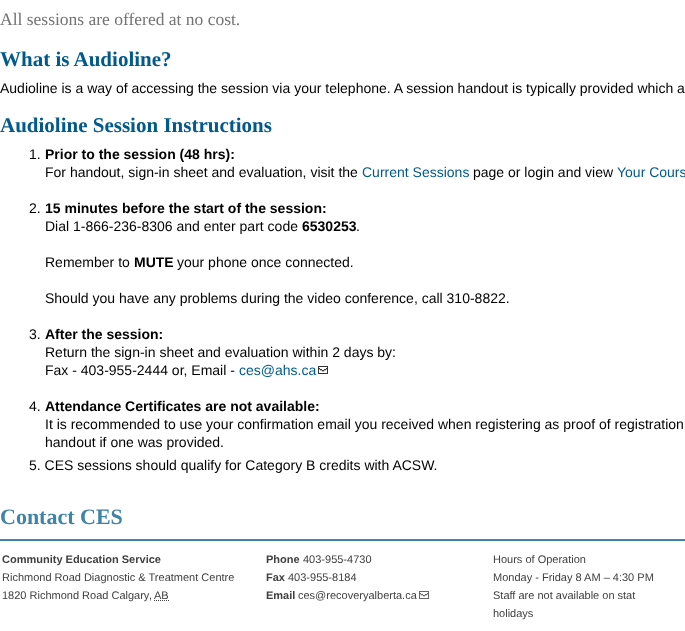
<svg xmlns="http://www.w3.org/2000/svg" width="685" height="631">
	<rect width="100%" height="100%" fill="#FFFFFF" />
	<text x="0" y="25" font-family="Liberation Serif" font-size="17.5" fill="#737373">All sessions are offered at no cost.</text>
	<text x="0" y="66" font-family="Liberation Serif" font-size="21" font-weight="700" fill="#005A8C">What is Audioline?</text>
	<text x="0" y="93" font-family="Liberation Sans" font-size="14" fill="#000000">Audioline is a way of accessing the session via your telephone. A session handout is typically provided which a</text>
	<text x="0" y="132" font-family="Liberation Serif" font-size="21" font-weight="700" fill="#005A8C">Audioline Session Instructions</text>
	<text x="29" y="159" font-family="Liberation Sans" font-size="14" fill="#000000">1.</text>
	<text x="45" y="159" font-family="Liberation Sans" font-size="14" font-weight="700" fill="#000000">Prior to the session (48 hrs):</text>
	<text x="45" y="177" font-family="Liberation Sans" font-size="14" fill="#000000">For handout, sign-in sheet and evaluation, visit the</text>
	<text x="362" y="177" font-family="Liberation Sans" font-size="14" fill="#005A8C">Current Sessions</text>
	<text x="473" y="177" font-family="Liberation Sans" font-size="14" fill="#000000">page or login and view</text>
	<text x="617" y="177" font-family="Liberation Sans" font-size="14" fill="#005A8C">Your Cours</text>
	<text x="29" y="213" font-family="Liberation Sans" font-size="14" fill="#000000">2.</text>
	<text x="45" y="213" font-family="Liberation Sans" font-size="14" font-weight="700" fill="#000000">15 minutes before the start of the session:</text>
	<text x="45" y="231" font-family="Liberation Sans" font-size="14" fill="#000000">Dial 1-866-236-8306 and enter part code</text>
	<text x="302" y="231" font-family="Liberation Sans" font-size="14" font-weight="700" fill="#000000">6530253</text>
	<g font-family="Liberation Sans" font-size="14" fill="#000000">
		<text x="356" y="231">.</text>
		<text x="45" y="267">Remember to</text>
	</g>
	<text x="134" y="267" font-family="Liberation Sans" font-size="14" font-weight="700" fill="#000000">MUTE</text>
	<g font-family="Liberation Sans" font-size="14" fill="#000000">
		<text x="177" y="267">your phone once connected.</text>
		<text x="45" y="303">Should you have any problems during the video conference, call 310-8822.</text>
		<text x="29" y="339">3.</text>
	</g>
	<text x="45" y="339" font-family="Liberation Sans" font-size="14" font-weight="700" fill="#000000">After the session:</text>
	<g font-family="Liberation Sans" font-size="14" fill="#000000">
		<text x="45" y="357">Return the sign-in sheet and evaluation within 2 days by:</text>
		<text x="45" y="375">Fax - 403-955-2444 or, Email -</text>
	</g>
	<text x="239" y="375" font-family="Liberation Sans" font-size="14" fill="#005A8C">ces@ahs.ca</text>
	<image x="318" y="366" width="10" height="8" href="assets/img1.png" />
	<text x="29" y="411" font-family="Liberation Sans" font-size="14" fill="#000000">4.</text>
	<text x="45" y="411" font-family="Liberation Sans" font-size="14" font-weight="700" fill="#000000">Attendance Certificates are not available:</text>
	<g font-family="Liberation Sans" font-size="14" fill="#000000">
		<text x="45" y="429">It is recommended to use your confirmation email you received when registering as proof of registration</text>
		<text x="45" y="447">handout if one was provided.</text>
		<text x="29" y="470">5. CES sessions should qualify for Category B credits with ACSW.</text>
	</g>
	<rect x="0" y="539" width="685" height="2" fill="#4083A9" />
	<text x="0" y="524" font-family="Liberation Serif" font-size="22" font-weight="700" fill="#4083A9">Contact CES</text>
	<text x="2" y="563" font-family="Liberation Sans" font-size="11" font-weight="700" fill="#404040">Community Education Service</text>
	<g font-family="Liberation Sans" font-size="11" fill="#404040">
		<text x="2" y="581">Richmond Road Diagnostic &amp; Treatment Centre</text>
		<text x="2" y="599">1820 Richmond Road Calgary</text>
		<text x="154" y="599">AB</text>
	</g>
	<path d="M154 600.5H169" fill="none" stroke="#404040" stroke-dasharray="1 1" />
	<text x="149" y="599" font-family="Liberation Sans" font-size="11" fill="#404040">,</text>
	<text x="266" y="563" font-family="Liberation Sans" font-size="11" font-weight="700" fill="#404040">Phone</text>
	<text x="303" y="563" font-family="Liberation Sans" font-size="11" fill="#404040">403-955-4730</text>
	<text x="266" y="581" font-family="Liberation Sans" font-size="11" font-weight="700" fill="#404040">Fax</text>
	<text x="288" y="581" font-family="Liberation Sans" font-size="11" fill="#404040">403-955-8184</text>
	<text x="266" y="599" font-family="Liberation Sans" font-size="11" font-weight="700" fill="#404040">Email</text>
	<text x="298" y="599" font-family="Liberation Sans" font-size="11" fill="#404040">ces@recoveryalberta.ca</text>
	<image x="419" y="591" width="10" height="8" href="assets/img2.png" />
	<g font-family="Liberation Sans" font-size="11" fill="#404040">
		<text x="493" y="563">Hours of Operation</text>
		<text x="493" y="581">Monday - Friday 8 AM – 4:30 PM</text>
		<text x="493" y="599">Staff are not available on stat</text>
		<text x="493" y="617">holidays</text>
	</g>
</svg>
